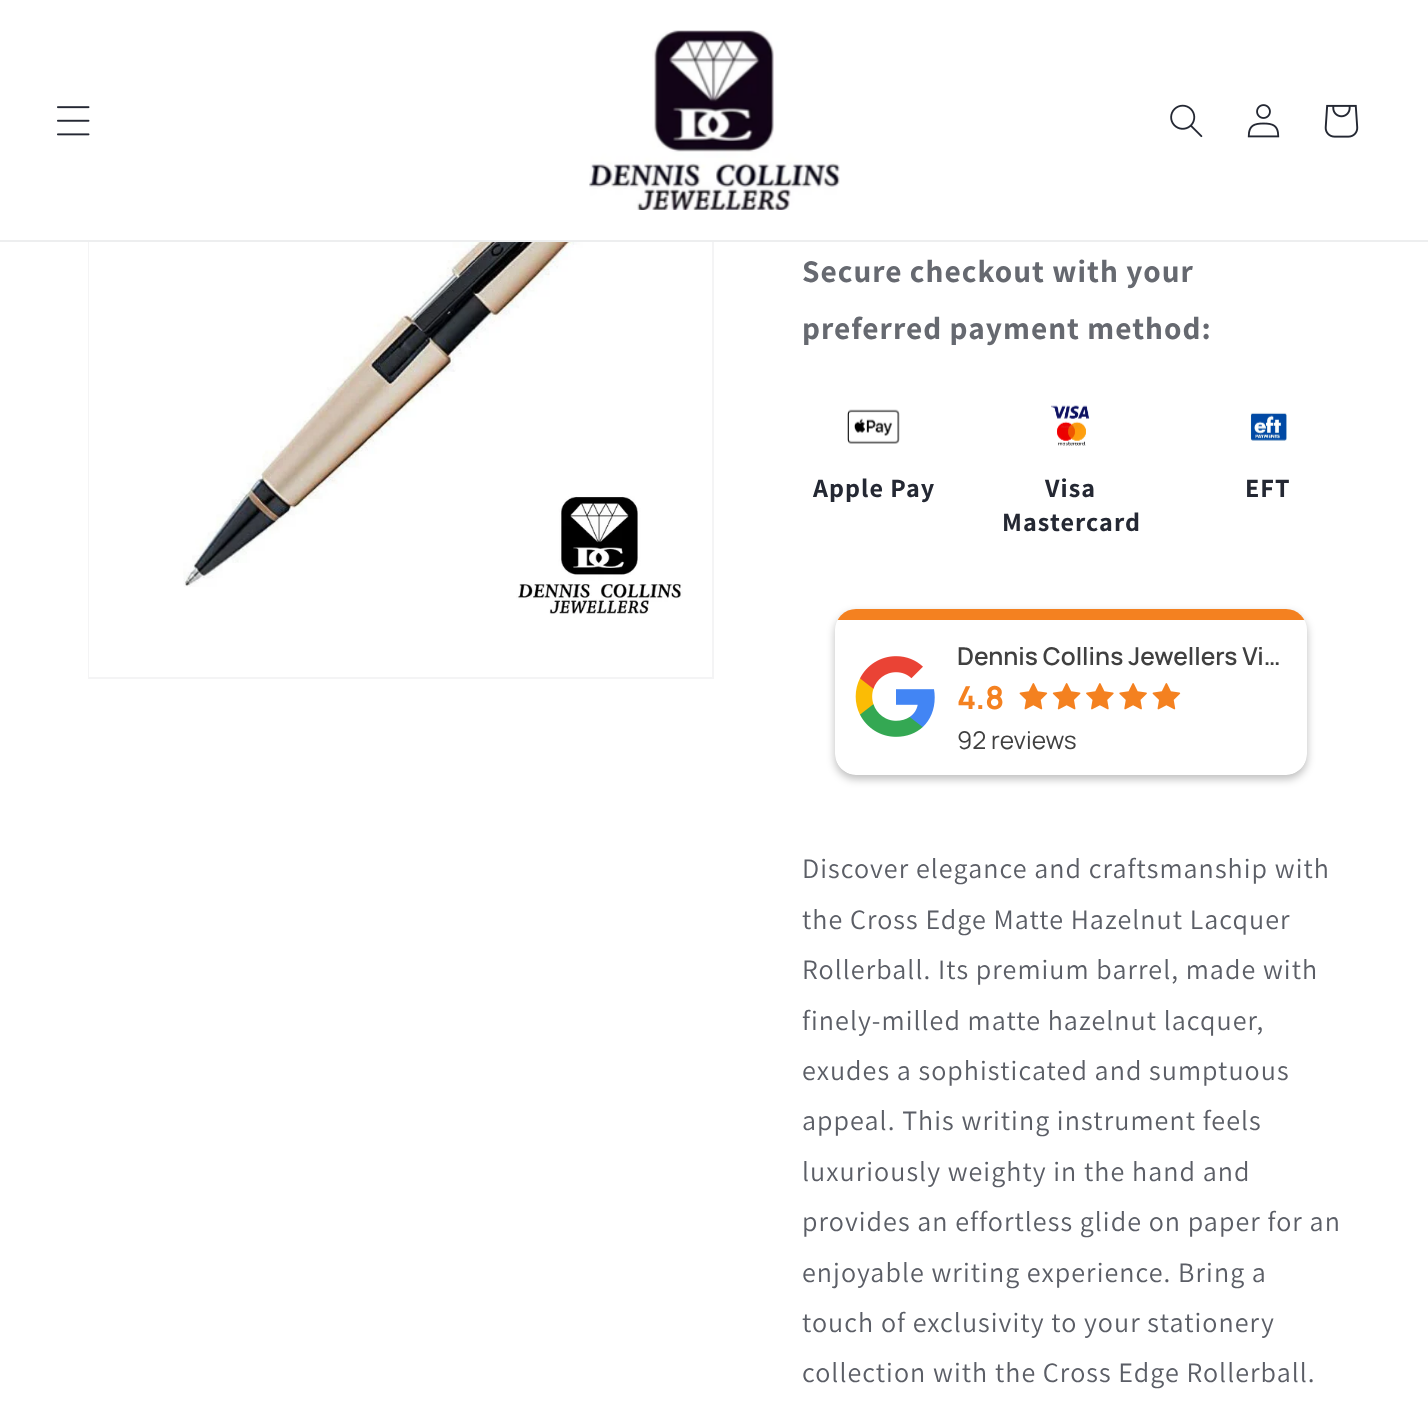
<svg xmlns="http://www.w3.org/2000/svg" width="1428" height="1419">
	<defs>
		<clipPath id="clip1"><rect x="835" y="609" width="472" height="166" rx="21" /></clipPath>
	</defs>
	<rect width="100%" height="100%" fill="#FFFFFF" />
	<rect x="89" y="54" width="624" height="624" fill="none" stroke="#F4F4F5" stroke-width="2" />
	<rect x="88" y="53" width="626" height="187" fill="#FFFFFF" />
	<rect x="0" y="240" width="1428" height="2" fill="#EDEEEF" />
	<image x="57" y="106" width="33" height="30" href="assets/img1.png" />
	<image x="589" y="30" width="251" height="180" href="assets/img2.png" />
	<image x="1170" y="104" width="33" height="34" href="assets/img3.png" />
	<image x="1247" y="104" width="33" height="34" href="assets/img4.png" />
	<image x="1324" y="104" width="35" height="34" href="assets/img5.png" />
	<image x="89" y="242" width="623" height="435" href="assets/img6.png" />
	<g font-family="Assistant" font-size="31.5" font-weight="700" letter-spacing="1.05" fill="#666970">
		<text x="802" y="282">Secure checkout with your</text>
		<text x="802" y="339">preferred payment method:</text>
	</g>
	<image x="847" y="409" width="53" height="35" href="assets/img7.png" />
	<text x="813" y="497" font-family="Assistant" font-size="26.25" font-weight="700" letter-spacing="1.05" fill="#242833">Apple Pay</text>
	<image x="1051" y="405" width="39" height="41" href="assets/img8.png" />
	<g font-family="Assistant" font-size="26.25" font-weight="700" letter-spacing="1.05" fill="#242833">
		<text x="1045" y="497">Visa</text>
		<text x="1002" y="531">Mastercard</text>
	</g>
	<image x="1250" y="412" width="37" height="29" href="assets/img9.png" />
	<text x="1245" y="497" font-family="Assistant" font-size="26.25" font-weight="700" letter-spacing="1.05" fill="#242833">EFT</text>
	<rect x="835" y="613" width="472" height="166" rx="21" fill="#000000" fill-opacity="0.26" filter="blur(4.5px)" />
	<g clip-path="url(#clip1)">
		<rect x="837" y="609" width="468" height="11" fill="#F48120" />
		<path d="M835 620H1307V754C1307 765.5 1297.5 775 1286 775H856C844.5 775 835 765.5 835 754Z" fill="#FFFFFF" />
	</g>
	<image x="855" y="656" width="80" height="81" href="assets/img10.png" />
	<text x="957" y="665" font-family="Manrope" font-size="24.5" font-weight="600" fill="#404040">Dennis Collins Jewellers Vi…</text>
	<text x="957" y="709" font-family="Manrope" font-size="31.5" font-weight="700" fill="#F48120">4.8</text>
	<image x="1019" y="683" width="29" height="27" href="assets/img11.png" />
	<image x="1052" y="683" width="29" height="27" href="assets/img12.png" />
	<image x="1086" y="683" width="28" height="27" href="assets/img13.png" />
	<image x="1119" y="683" width="28" height="27" href="assets/img14.png" />
	<image x="1152" y="683" width="29" height="27" href="assets/img11.png" />
	<text x="957" y="749" font-family="Manrope" font-size="24.5" fill="#404040">92 reviews</text>
	<g font-family="Assistant" font-size="28" letter-spacing="1.05" fill="#5B5E66">
		<text x="802" y="878">Discover elegance and craftsmanship with</text>
		<text x="802" y="929">the Cross Edge Matte Hazelnut Lacquer</text>
		<text x="802" y="979">Rollerball. Its premium barrel, made with</text>
		<text x="802" y="1030">finely-milled matte hazelnut lacquer,</text>
		<text x="802" y="1080">exudes a sophisticated and sumptuous</text>
		<text x="802" y="1130">appeal. This writing instrument feels</text>
		<text x="802" y="1181">luxuriously weighty in the hand and</text>
		<text x="802" y="1231">provides an effortless glide on paper for an</text>
		<text x="802" y="1282">enjoyable writing experience. Bring a</text>
		<text x="802" y="1332">touch of exclusivity to your stationery</text>
		<text x="802" y="1382">collection with the Cross Edge Rollerball.</text>
	</g>
</svg>
